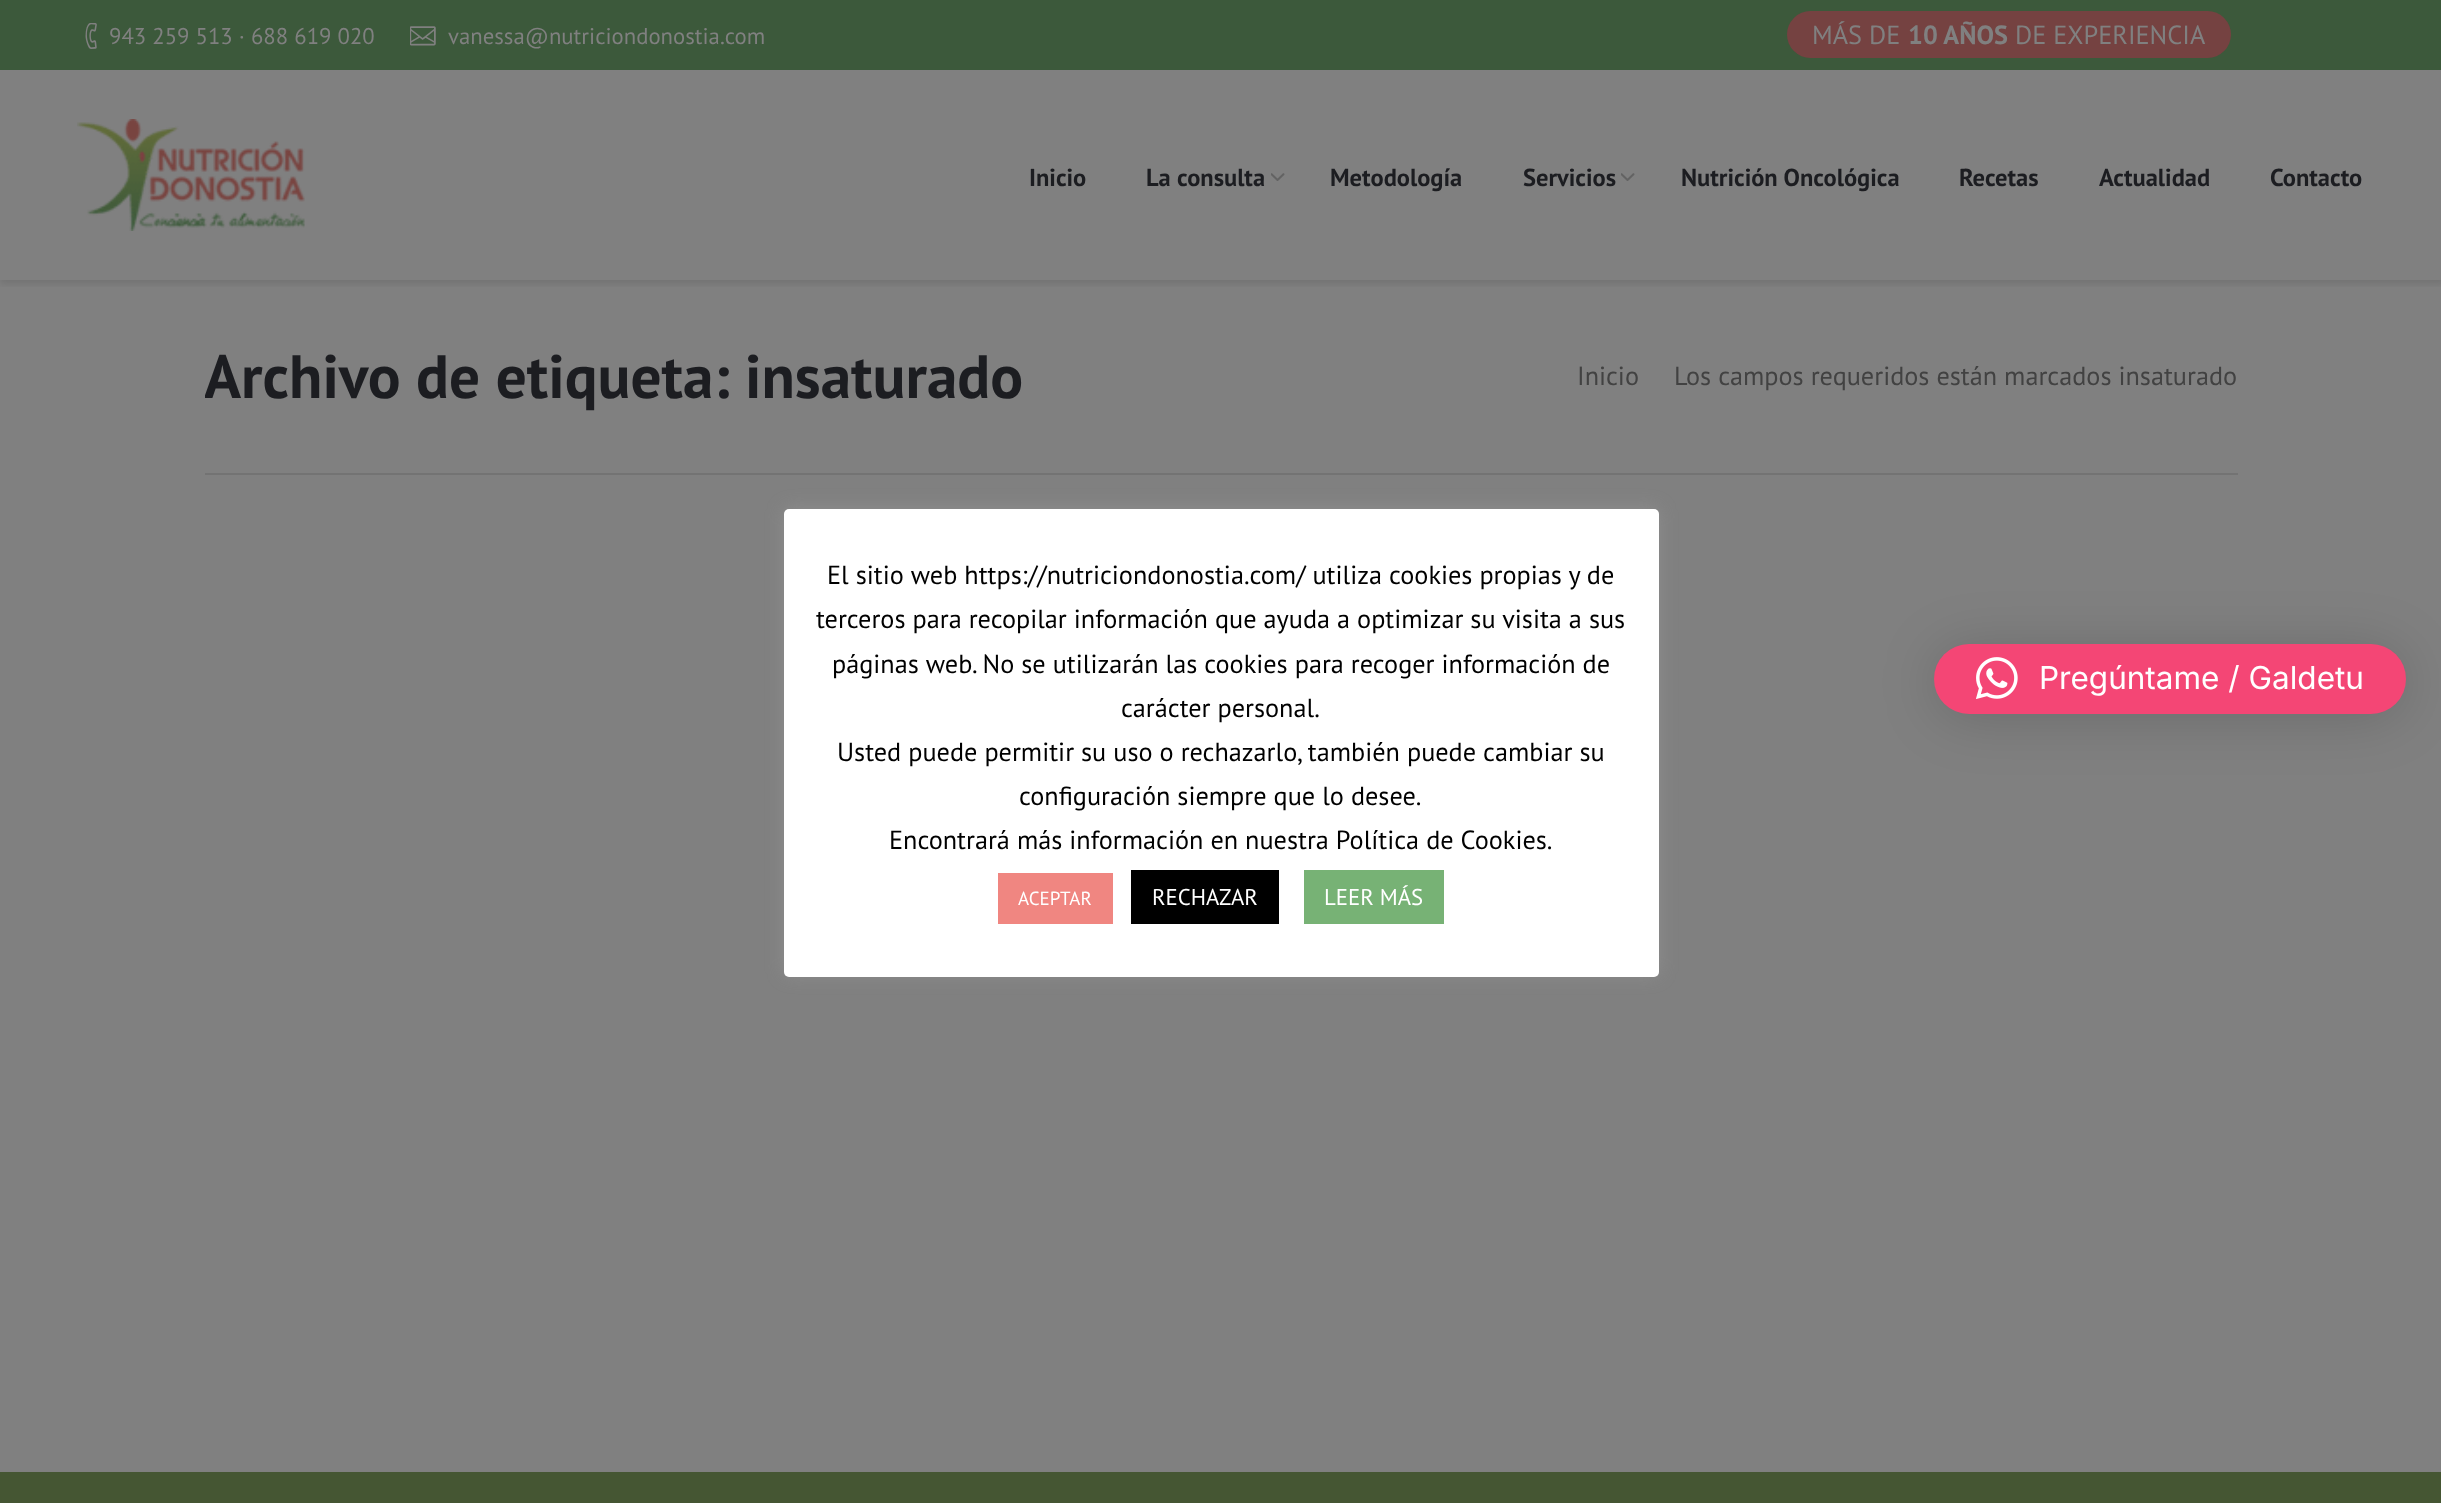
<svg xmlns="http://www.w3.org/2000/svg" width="2441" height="1503">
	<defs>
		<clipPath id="clip1"><rect x="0" y="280" width="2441" height="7" /></clipPath>
		<clipPath id="clip2"><rect x="205" y="280" width="1125" height="193" /></clipPath>
	</defs>
	<rect width="100%" height="100%" fill="#808080" />
	<g clip-path="url(#clip1)">
		<rect x="0" y="0" width="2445" height="284" fill="#000000" fill-opacity="0.1" filter="blur(3.5px)" />
	</g>
	<rect x="0" y="0" width="2441" height="70" fill="#3C593B" />
	<image x="85" y="23" width="12" height="26" href="assets/img1.png" />
	<text x="109" y="44" font-family="PT Sans" font-size="22.75" fill="#808080">943 259 513 · 688 619 020</text>
	<image x="410" y="26" width="26" height="20" href="assets/img2.png" />
	<text x="448" y="44" font-family="PT Sans" font-size="22.75" fill="#808080">vanessa@nutriciondonostia.com</text>
	<rect x="1787" y="11" width="444" height="47" rx="23.5" fill="#754241" />
	<text x="1812" y="44" font-family="PT Sans" font-size="26.25" fill="#808080">MÁS DE</text>
	<text x="1908" y="44" font-family="PT Sans" font-size="26.25" font-weight="700" fill="#808080">10 AÑOS</text>
	<text x="2015" y="44" font-family="PT Sans" font-size="26.25" fill="#808080">DE EXPERIENCIA</text>
	<image x="77" y="119" width="228" height="112" href="assets/img3.png" />
	<g font-family="PT Sans" font-size="24.5" font-weight="700" fill="#1C1D21">
		<text x="1029" y="186">Inicio</text>
		<text x="1146" y="186">La consulta</text>
	</g>
	<image x="1271" y="173" width="14" height="8" href="assets/img4.png" />
	<g font-family="PT Sans" font-size="24.5" font-weight="700" fill="#1C1D21">
		<text x="1330" y="186">Metodología</text>
		<text x="1523" y="186">Servicios</text>
	</g>
	<image x="1621" y="173" width="14" height="8" href="assets/img4.png" />
	<g font-family="PT Sans" font-size="24.5" font-weight="700" fill="#1C1D21">
		<text x="1681" y="186">Nutrición Oncológica</text>
		<text x="1959" y="186">Recetas</text>
		<text x="2099" y="186">Actualidad</text>
		<text x="2270" y="186">Contacto</text>
	</g>
	<rect x="205" y="473" width="2033" height="2" fill="#737373" />
	<g clip-path="url(#clip2)">
		<text x="204" y="398" font-family="PT Sans" font-size="61.25" font-weight="700" fill="#1C1D21">Archivo de etiqueta:</text>
	</g>
	<text x="745" y="398" font-family="PT Sans" font-size="61.25" font-weight="700" fill="#1C1D21">insaturado</text>
	<g font-family="PT Sans" font-size="26.25" fill="#424242">
		<text x="1577" y="385">Inicio</text>
		<text x="1674" y="385">Los campos requeridos están marcados insaturado</text>
	</g>
	<rect x="0" y="1472" width="2441" height="31" fill="#455633" />
	<rect x="784" y="508" width="875" height="467" rx="5" fill="#ACABAB" fill-opacity="0.3" filter="blur(9px)" />
	<rect x="784" y="509" width="875" height="468" rx="5" fill="#FFFFFF" />
	<g font-family="PT Sans" font-size="26.25" fill="#000000">
		<text x="827" y="584">El sitio web https://nutriciondonostia.com/ utiliza cookies propias y de</text>
		<text x="816" y="628">terceros para recopilar información que ayuda a optimizar su visita a sus</text>
		<text x="832" y="673">páginas web. No se utilizarán las cookies para recoger información de</text>
		<text x="1121" y="717">carácter personal.</text>
		<text x="837" y="761">Usted puede permitir su uso o rechazarlo, también puede cambiar su</text>
		<text x="1019" y="805">configuración siempre que lo desee.</text>
		<text x="889" y="849">Encontrará más información en nuestra Política de Cookies.</text>
	</g>
	<rect x="998" y="873" width="115" height="51" fill="#F08681" />
	<text x="1018" y="905" font-family="PT Sans" font-size="19" fill="#FFFFFF">ACEPTAR</text>
	<rect x="1131" y="870" width="148" height="54" fill="#000000" />
	<text x="1152" y="905" font-family="PT Sans" font-size="22.75" fill="#FFFFFF">RECHAZAR</text>
	<rect x="1304" y="870" width="140" height="54" fill="#77B275" />
	<text x="1324" y="905" font-family="PT Sans" font-size="22.75" fill="#FFFFFF">LEER MÁS</text>
	<rect x="1934" y="648" width="472" height="70" rx="35" fill="#000000" fill-opacity="0.16" filter="blur(28px)" />
	<rect x="1934" y="644" width="472" height="70" rx="35" fill="#F44675" />
	<image x="1976" y="657" width="42" height="42" href="assets/img5.png" />
	<text x="2039" y="689" font-family="Inter" font-size="31.5" fill="#FFFFFF">Pregúntame / Galdetu</text>
</svg>
